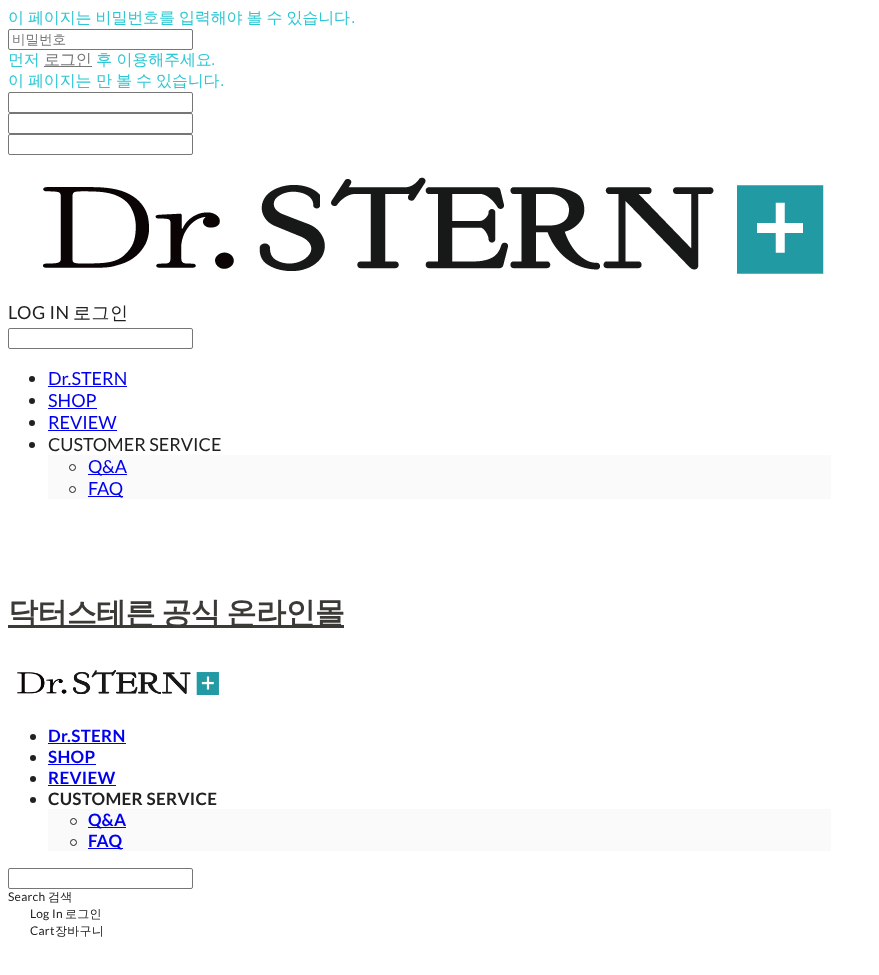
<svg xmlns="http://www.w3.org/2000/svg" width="879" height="975">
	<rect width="100%" height="100%" fill="#FFFFFF" />
	<text x="8" y="23" word-spacing="-0.5" font-family="WenQuanYi Zen Hei" font-size="16" font-weight="500" letter-spacing="-0.15" fill="#2DC7D4">이 페이지는 비밀번호를 입력해야 볼 수 있습니다</text>
	<text x="351" y="23" font-family="Liberation Sans" font-size="16" letter-spacing="-0.15" fill="#2DC7D4">.</text>
	<rect x="8.5" y="29.5" width="184" height="20" rx="1.5" fill="none" stroke="#767676" />
	<text x="12" y="44" font-family="WenQuanYi Zen Hei" font-size="13.5" font-weight="500" fill="#757575">비밀번호</text>
	<text x="8" y="65" font-family="WenQuanYi Zen Hei" font-size="16" font-weight="500" letter-spacing="-0.15" fill="#2DC7D4">먼저</text>
	<rect x="44" y="66" width="48" height="1" fill="#777777" />
	<text x="44" y="65" font-family="WenQuanYi Zen Hei" font-size="16" font-weight="500" letter-spacing="-0.15" fill="#757575">로그인</text>
	<text x="96" y="65" font-family="WenQuanYi Zen Hei" font-size="16" font-weight="500" letter-spacing="-0.15" fill="#2DC7D4">후 이용해주세요</text>
	<text x="211" y="65" font-family="Liberation Sans" font-size="16" letter-spacing="-0.15" fill="#2DC7D4">.</text>
	<g font-family="WenQuanYi Zen Hei" font-size="16" font-weight="500" letter-spacing="-0.15" fill="#2DC7D4">
		<text x="8" y="86" word-spacing="-0.5">이 페이지는</text>
		<text x="96" y="86" word-spacing="-0.5">만 볼 수 있습니다</text>
	</g>
	<text x="220" y="86" font-family="Liberation Sans" font-size="16" letter-spacing="-0.15" fill="#2DC7D4">.</text>
	<rect x="8.5" y="92.5" width="184" height="20" rx="1.5" fill="none" stroke="#767676" />
	<rect x="8.5" y="113.5" width="184" height="20" rx="1.5" fill="none" stroke="#767676" />
	<rect x="8.5" y="134.5" width="184" height="20" rx="1.5" fill="none" stroke="#767676" />
	<image x="43" y="177" width="781" height="97" href="assets/img1.png" />
	<text x="8" y="319" font-family="Lato" font-size="18" letter-spacing="0.5" fill="#212121">LOG IN</text>
	<text x="73" y="319" font-family="WenQuanYi Zen Hei" font-size="18" font-weight="500" letter-spacing="0.5" fill="#212121">로그인</text>
	<rect x="8.5" y="328.5" width="184" height="20" rx="1.5" fill="none" stroke="#767676" />
	<circle cx="32" cy="379" r="3" fill="#212121" />
	<text x="48" y="385" font-family="Lato" font-size="18" fill="#0000EE">Dr.STERN</text>
	<rect x="48" y="386" width="79" height="1" fill="#0000EE" />
	<circle cx="32" cy="401" r="3" fill="#212121" />
	<text x="48" y="407" font-family="Lato" font-size="18" fill="#0000EE">SHOP</text>
	<rect x="48" y="408" width="49" height="1" fill="#0000EE" />
	<circle cx="32" cy="423" r="3" fill="#212121" />
	<text x="48" y="429" font-family="Lato" font-size="18" fill="#0000EE">REVIEW</text>
	<rect x="48" y="430" width="69" height="1" fill="#0000EE" />
	<circle cx="32" cy="445" r="3" fill="#212121" />
	<text x="48" y="451" font-family="Lato" font-size="18" fill="#212121">CUSTOMER SERVICE</text>
	<rect x="48" y="455" width="783" height="44" fill="#FAFAFA" />
	<circle cx="72.5" cy="467.5" r="3" fill="none" stroke="#212121" />
	<rect x="88" y="474" width="39" height="1" fill="#0000EE" />
	<text x="88" y="473" font-family="Lato" font-size="18" fill="#0000EE">Q&amp;A</text>
	<circle cx="72.5" cy="489.5" r="3" fill="none" stroke="#212121" />
	<rect x="88" y="496" width="35" height="1" fill="#0000EE" />
	<text x="88" y="495" font-family="Lato" font-size="18" fill="#0000EE">FAQ</text>
	<rect x="8" y="625" width="336" height="3" fill="#3B3A36" />
	<text x="8" y="623" word-spacing="-2" font-family="WenQuanYi Zen Hei" font-size="30" font-weight="700" letter-spacing="-0.6" fill="#3B3A36">닥터스테른 공식 온라인몰</text>
	<image x="17" y="670" width="202" height="25" href="assets/img2.png" />
	<circle cx="33" cy="737" r="3" fill="#212121" />
	<text x="48" y="742" font-family="Lato" font-size="17" font-weight="700" letter-spacing="0.3" fill="#0000EE">Dr.STERN</text>
	<rect x="48" y="743" width="78" height="1" fill="#0000EE" />
	<circle cx="33" cy="758" r="3" fill="#212121" />
	<text x="48" y="763" font-family="Lato" font-size="17" font-weight="700" letter-spacing="0.3" fill="#0000EE">SHOP</text>
	<rect x="48" y="764" width="48" height="1" fill="#0000EE" />
	<circle cx="33" cy="779" r="3" fill="#212121" />
	<text x="48" y="784" font-family="Lato" font-size="17" font-weight="700" letter-spacing="0.3" fill="#0000EE">REVIEW</text>
	<rect x="48" y="785" width="68" height="1" fill="#0000EE" />
	<circle cx="33" cy="800" r="3" fill="#212121" />
	<text x="48" y="805" font-family="Lato" font-size="17" font-weight="700" letter-spacing="0.3" fill="#212121">CUSTOMER SERVICE</text>
	<rect x="48" y="809" width="783" height="42" fill="#FAFAFA" />
	<circle cx="73.5" cy="821.5" r="3" fill="none" stroke="#212121" />
	<rect x="88" y="827" width="38" height="1" fill="#0000EE" />
	<text x="88" y="826" font-family="Lato" font-size="17" font-weight="700" letter-spacing="0.3" fill="#0000EE">Q&amp;A</text>
	<circle cx="73.5" cy="842.5" r="3" fill="none" stroke="#212121" />
	<rect x="88" y="848" width="35" height="1" fill="#0000EE" />
	<text x="88" y="847" font-family="Lato" font-size="17" font-weight="700" letter-spacing="0.3" fill="#0000EE">FAQ</text>
	<rect x="8.5" y="868.5" width="184" height="20" rx="1.5" fill="none" stroke="#767676" />
	<text x="8" y="901" font-family="Lato" font-size="12" letter-spacing="0.25" fill="#212121">Search</text>
	<text x="48" y="901" font-family="WenQuanYi Zen Hei" font-size="12" font-weight="500" letter-spacing="0.25" fill="#212121">검색</text>
	<text x="30" y="918" font-family="Lato" font-size="12" letter-spacing="0.25" fill="#212121">Log In</text>
	<text x="65" y="918" font-family="WenQuanYi Zen Hei" font-size="12" font-weight="500" letter-spacing="0.25" fill="#212121">로그인</text>
	<text x="30" y="935" font-family="Lato" font-size="12" letter-spacing="0.25" fill="#212121">Cart</text>
	<text x="55" y="935" font-family="WenQuanYi Zen Hei" font-size="12" font-weight="500" letter-spacing="0.25" fill="#212121">장바구니</text>
</svg>
